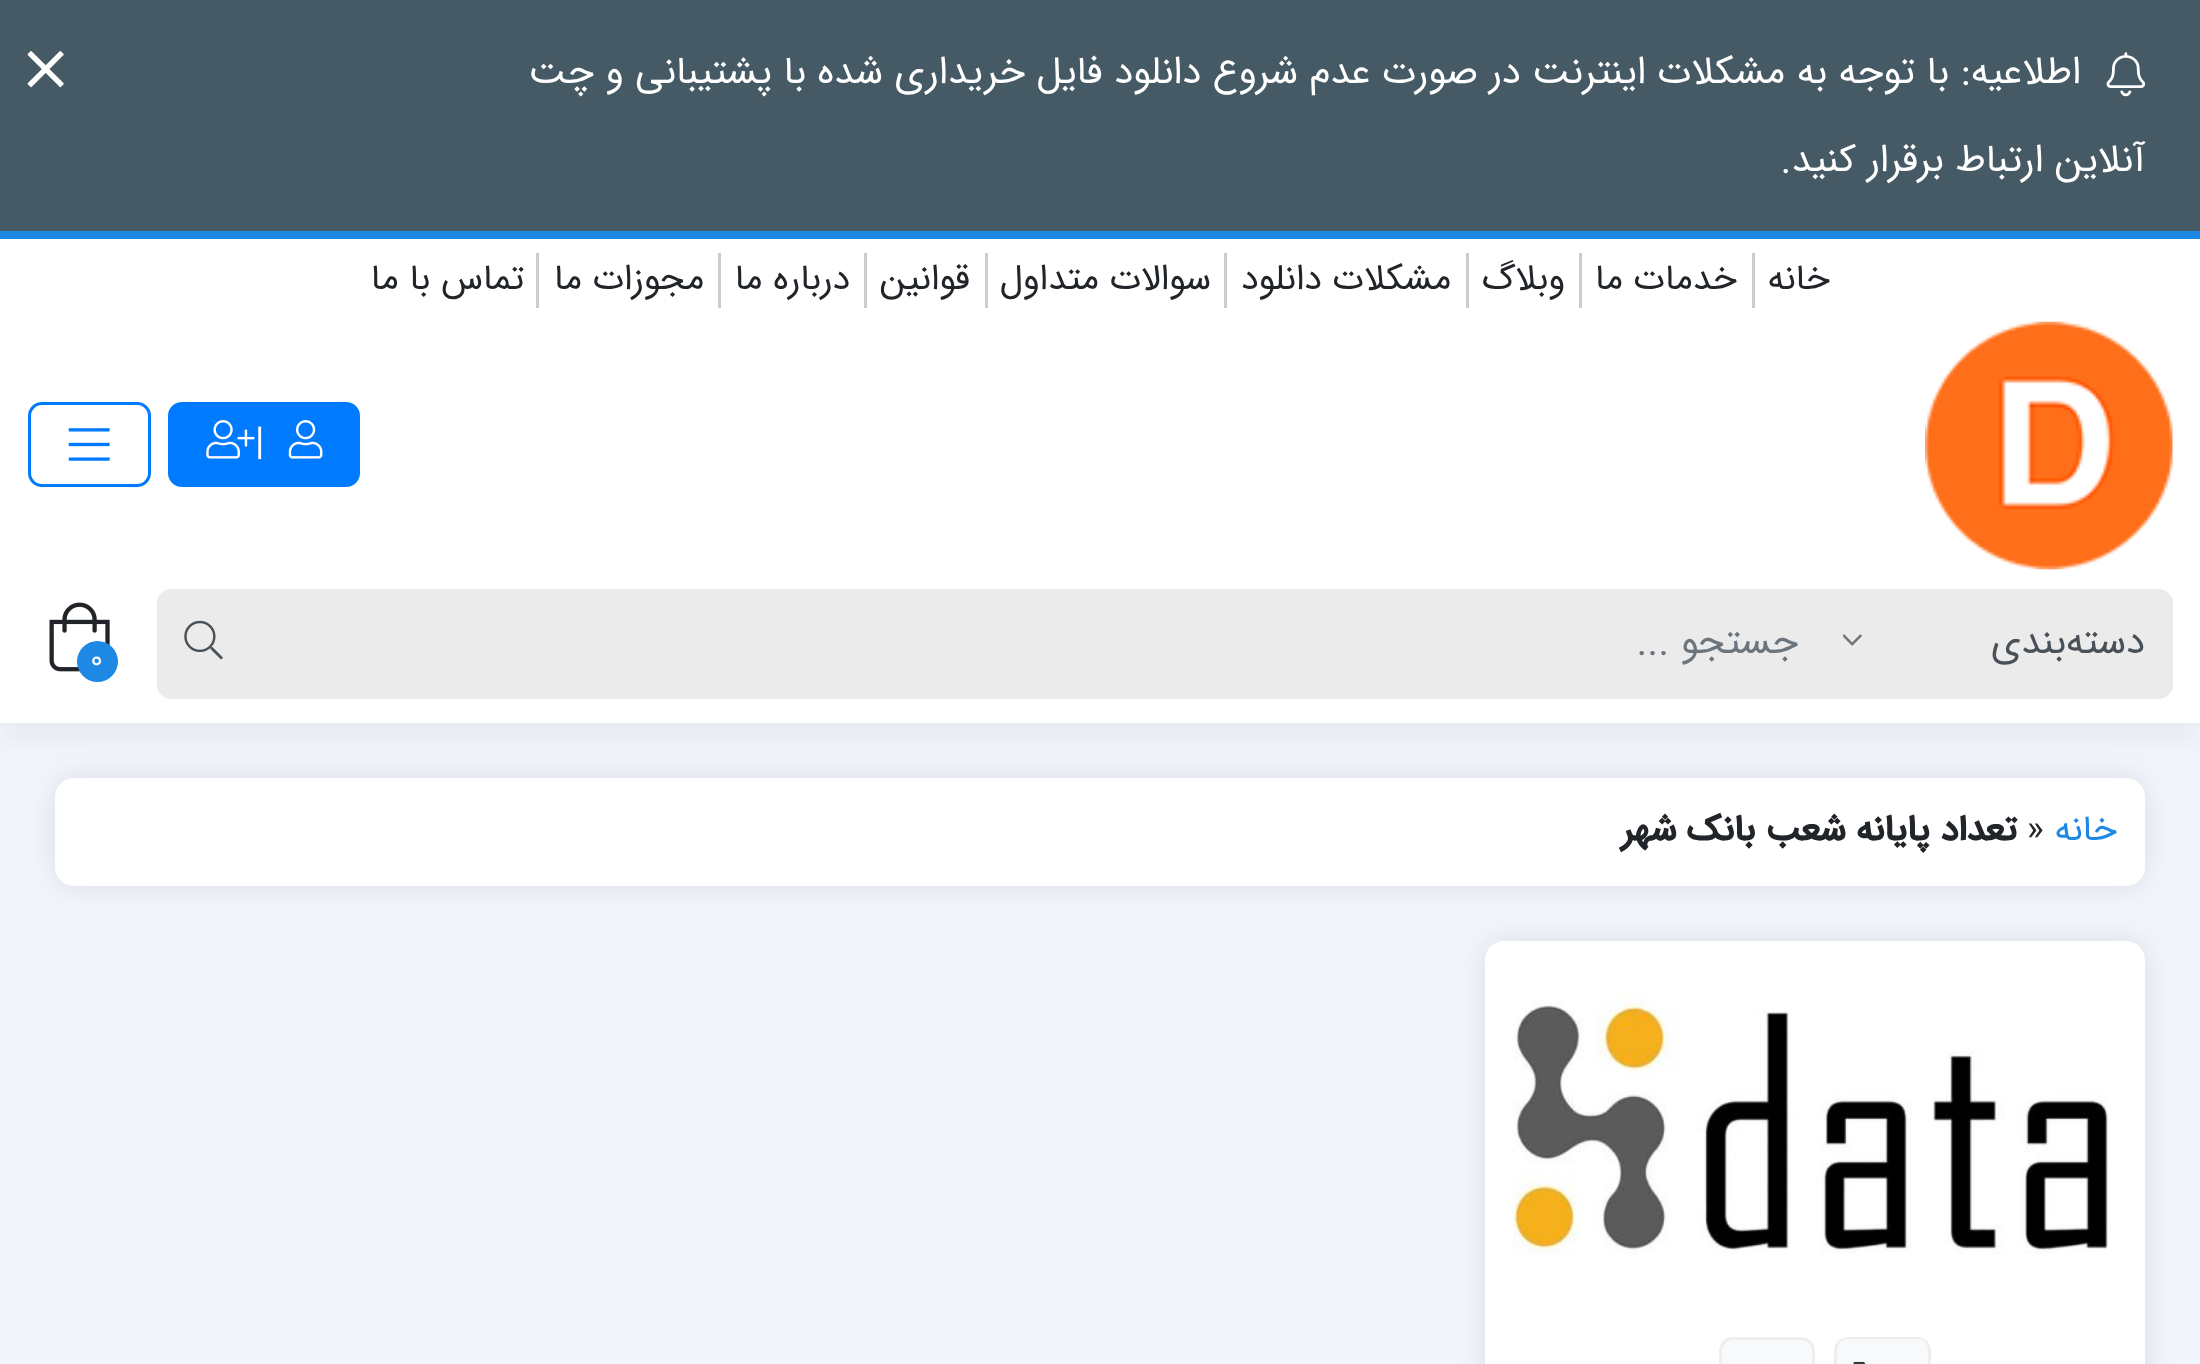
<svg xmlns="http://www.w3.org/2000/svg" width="2200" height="1364">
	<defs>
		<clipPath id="clip1"><rect x="1837" y="1339" width="91" height="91" rx="11" /></clipPath>
	</defs>
	<rect width="100%" height="100%" fill="#F2F6FC" />
	<rect x="0" y="231" width="2200" height="8" fill="#1E88E5" />
	<rect x="0" y="259" width="2200" height="484" fill="#000000" fill-opacity="0.04" filter="blur(11px)" />
	<rect x="0" y="0" width="2200" height="231" fill="#455A64" />
	<image x="2106" y="52" width="40" height="45" href="assets/img1.png" />
	<g font-family="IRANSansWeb" font-size="38.5" direction="rtl" fill="#FFFFFF">
		<text x="2081" y="83">اطلاعیه: با توجه به مشکلات اینترنت در صورت عدم شروع دانلود فایل خریداری شده با پشتیبانی و چت</text>
		<text x="2145" y="171">آنلاین ارتباط برقرار کنید.</text>
	</g>
	<image x="27" y="51" width="37" height="37" href="assets/img2.png" />
	<rect x="0" y="239" width="2200" height="484" fill="#FFFFFF" />
	<rect x="1752" y="253" width="3" height="55" fill="#CCCCCC" />
	<text x="1830" y="289" font-family="IRANSansWeb" font-size="35.75" direction="rtl" fill="#212529">خانه</text>
	<rect x="1579" y="253" width="3" height="55" fill="#CCCCCC" />
	<text x="1737" y="289" font-family="IRANSansWeb" font-size="35.75" direction="rtl" fill="#212529">خدمات ما</text>
	<rect x="1466" y="253" width="3" height="55" fill="#CCCCCC" />
	<text x="1565" y="289" font-family="IRANSansWeb" font-size="35.75" direction="rtl" fill="#212529">وبلاگ</text>
	<rect x="1224" y="253" width="3" height="55" fill="#CCCCCC" />
	<text x="1451" y="289" font-family="IRANSansWeb" font-size="35.75" direction="rtl" fill="#212529">مشکلات دانلود</text>
	<rect x="985" y="253" width="3" height="55" fill="#CCCCCC" />
	<text x="1211" y="289" font-family="IRANSansWeb" font-size="35.75" direction="rtl" fill="#212529">سوالات متداول</text>
	<rect x="864" y="253" width="3" height="55" fill="#CCCCCC" />
	<text x="970" y="289" font-family="IRANSansWeb" font-size="35.75" direction="rtl" fill="#212529">قوانین</text>
	<rect x="718" y="253" width="3" height="55" fill="#CCCCCC" />
	<text x="850" y="289" font-family="IRANSansWeb" font-size="35.75" direction="rtl" fill="#212529">درباره ما</text>
	<rect x="536" y="253" width="3" height="55" fill="#CCCCCC" />
	<g font-family="IRANSansWeb" font-size="35.75" direction="rtl" fill="#212529">
		<text x="704" y="289">مجوزات ما</text>
		<text x="524" y="289">تماس با ما</text>
	</g>
	<image x="1925" y="321" width="248" height="249" href="assets/img3.png" />
	<rect x="169.5" y="403.5" width="189" height="82" rx="12.5" fill="#007BFF" stroke="#007BFF" stroke-width="3" />
	<image x="288" y="420" width="35" height="39" href="assets/img4.png" />
	<text x="255" y="454" font-family="IRANSansWeb" font-size="38.5" fill="#FFFFFF">|</text>
	<image x="206" y="420" width="49" height="39" href="assets/img5.png" />
	<rect x="29.5" y="403.5" width="120" height="82" rx="12.5" fill="none" stroke="#007BFF" stroke-width="3" />
	<image x="68" y="428" width="42" height="33" href="assets/img6.png" />
	<path d="M1843 589H2159C2166.5 589 2173 595.5 2173 603V685C2173 692.5 2166.5 699 2159 699H1843Z" fill="#EBEBEB" />
	<text x="2145" y="653" font-family="IRANSansWeb" font-size="38.5" direction="rtl" fill="#495057">دسته‌بندی</text>
	<image x="1843" y="634" width="19" height="12" href="assets/img7.png" />
	<rect x="267" y="589" width="1576" height="110" fill="#EBEBEB" />
	<text x="1798" y="653" font-family="IRANSansWeb" font-size="38.5" direction="rtl" fill="#6C757D">جستجو ...</text>
	<path d="M171 589H267V699H171C163.5 699 157 692.5 157 685V603C157 595.5 163.5 589 171 589Z" fill="#EBEBEB" />
	<image x="184" y="620" width="39" height="40" href="assets/img8.png" />
	<image x="49" y="602" width="61" height="70" href="assets/img9.png" />
	<circle cx="97.5" cy="661.5" r="20.5" fill="#1E88E5" />
	<text x="90" y="668" font-family="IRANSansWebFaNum" font-size="30" fill="#FFFFFF">0</text>
	<rect x="55" y="778" width="2090" height="108" rx="19" fill="#000000" fill-opacity="0.1" filter="blur(14px)" />
	<rect x="55" y="778" width="2090" height="108" rx="19" fill="#FFFFFF" />
	<text x="2117" y="840" font-family="IRANSansWebFaNum" font-size="35.75" direction="rtl" fill="#1E88E5">خانه</text>
	<text x="2027" y="840" font-family="IRANSansWebFaNum" font-size="35.75" fill="#212529">»</text>
	<text x="2017" y="840" font-family="IRANSansWebFaNum" font-size="35.75" font-weight="700" direction="rtl" fill="#212529">تعداد پایانه شعب بانک شهر</text>
	<rect x="1485" y="941" width="660" height="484" rx="19" fill="#000000" fill-opacity="0.1" filter="blur(14px)" />
	<rect x="1485" y="941" width="660" height="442" rx="19" fill="#FFFFFF" />
	<image x="1512" y="989" width="596" height="266" href="assets/img10.png" />
	<rect x="1835.5" y="1338.5" width="94" height="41" rx="12.5" fill="none" stroke="#EEEEEE" stroke-width="3" />
	<g clip-path="url(#clip1)">
		<rect x="1834" y="1337" width="97" height="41" rx="14" fill="#F8F9FA" />
	</g>
	<image x="1853" y="1361" width="13" height="3" href="assets/img11.png" />
	<rect x="1720.5" y="1338.5" width="93" height="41" rx="12.5" fill="#F8F9FA" stroke="#EEEEEE" stroke-width="3" />
</svg>
